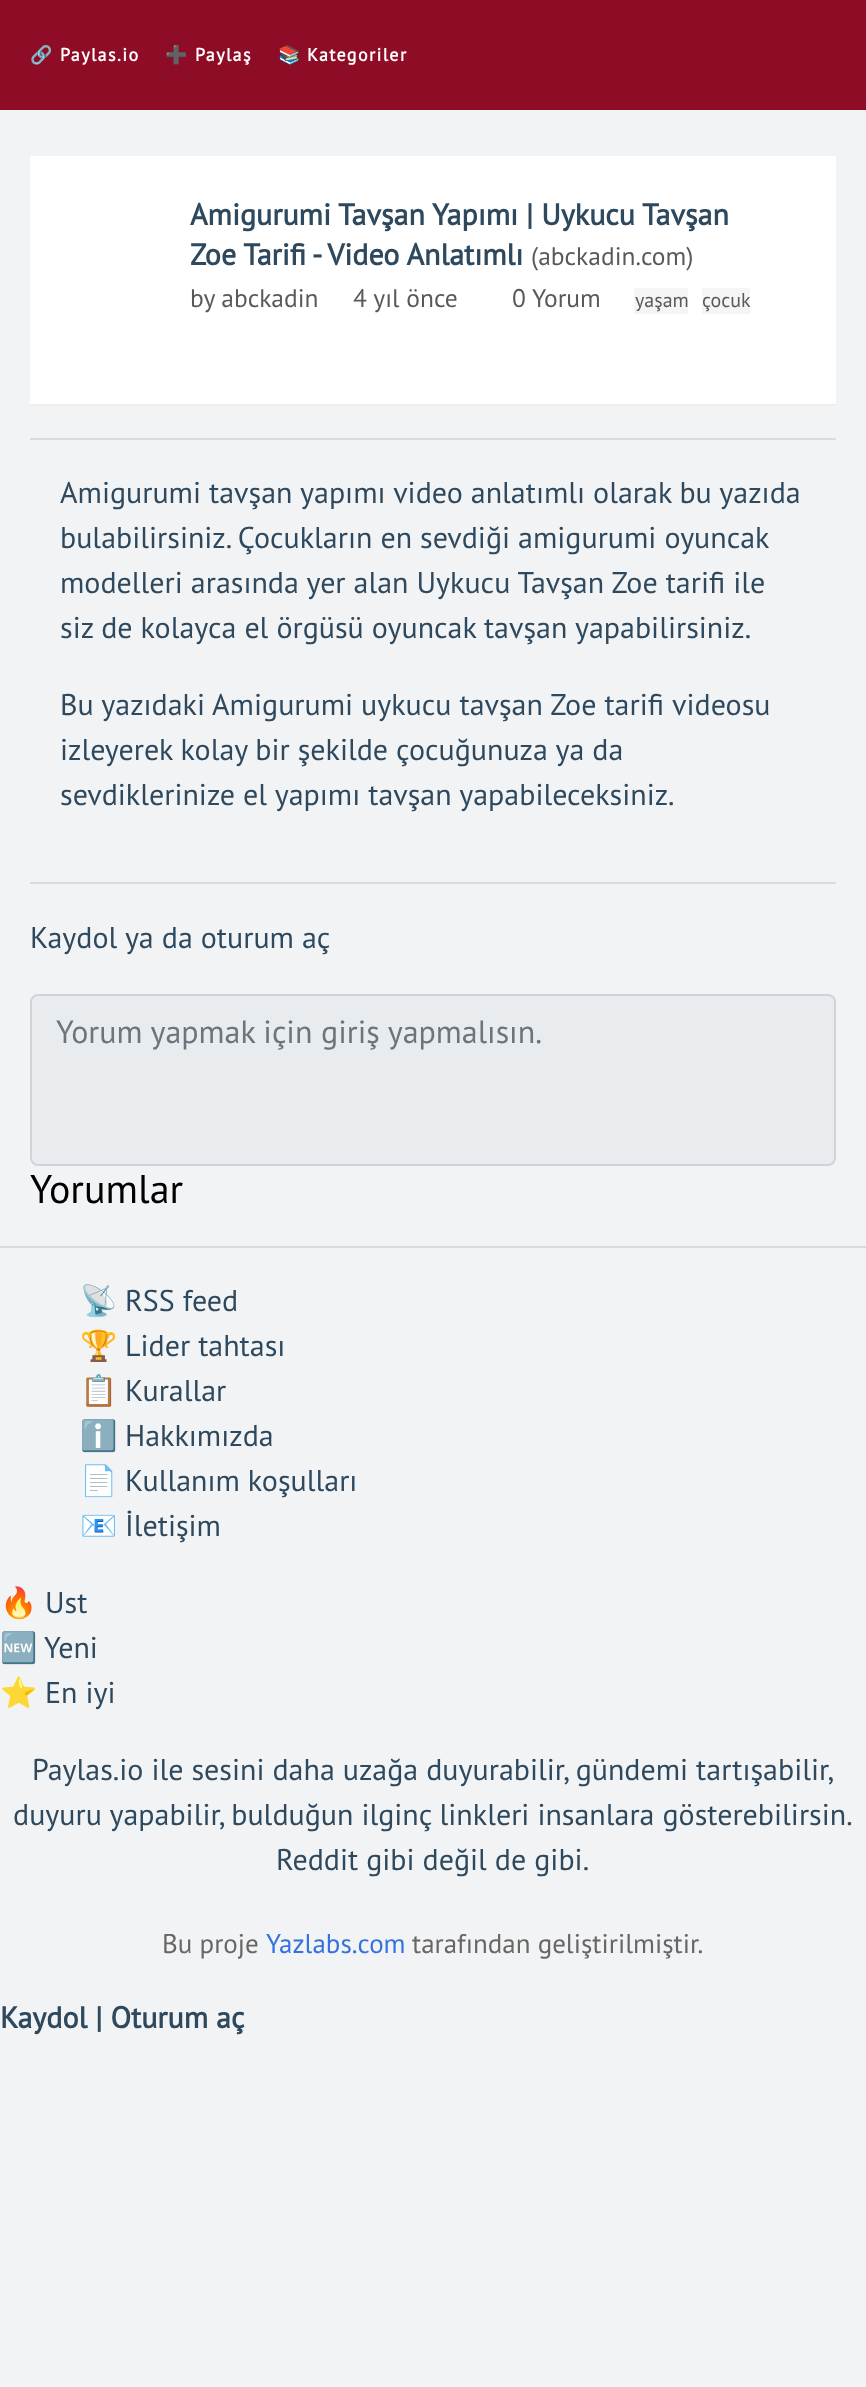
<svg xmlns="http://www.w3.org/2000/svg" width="866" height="2387">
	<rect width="100%" height="100%" fill="#F2F3F5" />
	<rect x="0" y="0" width="866" height="110" fill="#8E0C25" />
	<text x="30" y="61" font-family="Noto Color Emoji" font-size="18" font-weight="700" letter-spacing="1.4" fill="#FFFFFF">🔗</text>
	<text x="60" y="61" font-family="PT Sans" font-size="18" font-weight="700" letter-spacing="1.4" fill="#FFFFFF">Paylas.io</text>
	<text x="165" y="61" font-family="Noto Color Emoji" font-size="18" font-weight="700" letter-spacing="1.4" fill="#FFFFFF">➕</text>
	<text x="195" y="61" font-family="PT Sans" font-size="18" font-weight="700" letter-spacing="1.4" fill="#FFFFFF">Paylaş</text>
	<text x="278" y="61" font-family="Noto Color Emoji" font-size="18" font-weight="700" letter-spacing="1.4" fill="#FFFFFF">📚</text>
	<text x="307" y="61" font-family="PT Sans" font-size="18" font-weight="700" letter-spacing="1.4" fill="#FFFFFF">Kategoriler</text>
	<rect x="30" y="156" width="806" height="248" fill="#FFFFFF" />
	<rect x="30" y="404" width="806" height="2" fill="#EEEEEE" />
	<g font-family="PT Sans" font-size="30" font-weight="700" fill="#2E495E">
		<text x="190" y="225">Amigurumi Tavşan Yapımı | Uykucu Tavşan</text>
		<text x="190" y="265">Zoe Tarifi - Video Anlatımlı</text>
	</g>
	<g font-family="PT Sans" font-size="25.5" fill="#595959">
		<text x="531" y="265">(abckadin.com)</text>
		<text x="190" y="307">by abckadin</text>
		<text x="353" y="307">4 yıl önce</text>
		<text x="512" y="307">0 Yorum</text>
	</g>
	<rect x="634" y="288" width="54" height="26" fill="#F5F5F5" />
	<text x="635" y="307" font-family="PT Sans" font-size="20" fill="#595959">yaşam</text>
	<rect x="702" y="288" width="48" height="26" fill="#F5F5F5" />
	<text x="702" y="307" font-family="PT Sans" font-size="20" fill="#595959">çocuk</text>
	<rect x="30" y="438" width="806" height="2" fill="#DADBDD" />
	<g font-family="PT Sans" font-size="30" fill="#2E495E">
		<text x="60" y="503">Amigurumi tavşan yapımı video anlatımlı olarak bu yazıda</text>
		<text x="60" y="548">bulabilirsiniz. Çocukların en sevdiği amigurumi oyuncak</text>
		<text x="60" y="593">modelleri arasında yer alan Uykucu Tavşan Zoe tarifi ile</text>
		<text x="60" y="638">siz de kolayca el örgüsü oyuncak tavşan yapabilirsiniz.</text>
		<text x="60" y="715">Bu yazıdaki Amigurumi uykucu tavşan Zoe tarifi</text>
		<text x="672" y="715">videosu</text>
		<text x="60" y="760">izleyerek kolay bir şekilde çocuğunuza ya da</text>
		<text x="60" y="805">sevdiklerinize el yapımı tavşan yapabileceksiniz.</text>
	</g>
	<rect x="30" y="882" width="806" height="2" fill="#DADBDD" />
	<text x="30" y="948" font-family="PT Sans" font-size="30" fill="#2E495E">Kaydol ya da oturum aç</text>
	<rect x="31" y="995" width="804" height="170" rx="7" fill="#E9ECEF" stroke="#CED4DA" stroke-width="2" />
	<text x="56" y="1043" font-family="PT Sans" font-size="32" fill="#6C757D">Yorum yapmak için giriş yapmalısın.</text>
	<text x="30" y="1203" font-family="PT Sans" font-size="40" fill="#000000">Yorumlar</text>
	<rect x="0" y="1246" width="866" height="2" fill="#DADBDD" />
	<text x="80" y="1311" font-family="Noto Color Emoji" font-size="30" fill="#2E495E">📡</text>
	<text x="125" y="1311" font-family="PT Sans" font-size="30" fill="#2E495E">RSS feed</text>
	<text x="80" y="1356" font-family="Noto Color Emoji" font-size="30" fill="#2E495E">🏆</text>
	<text x="125" y="1356" font-family="PT Sans" font-size="30" fill="#2E495E">Lider tahtası</text>
	<text x="80" y="1401" font-family="Noto Color Emoji" font-size="30" fill="#2E495E">📋</text>
	<text x="125" y="1401" font-family="PT Sans" font-size="30" fill="#2E495E">Kurallar</text>
	<text x="80" y="1446" font-family="Noto Color Emoji" font-size="30" fill="#2E495E">ℹ️</text>
	<text x="125" y="1446" font-family="PT Sans" font-size="30" fill="#2E495E">Hakkımızda</text>
	<text x="80" y="1491" font-family="Noto Color Emoji" font-size="30" fill="#2E495E">📄</text>
	<text x="125" y="1491" font-family="PT Sans" font-size="30" fill="#2E495E">Kullanım koşulları</text>
	<text x="80" y="1536" font-family="Noto Color Emoji" font-size="30" fill="#2E495E">📧</text>
	<text x="125" y="1536" font-family="PT Sans" font-size="30" fill="#2E495E">İletişim</text>
	<text x="0" y="1613" font-family="Noto Color Emoji" font-size="30" fill="#2E495E">🔥</text>
	<text x="45" y="1613" font-family="PT Sans" font-size="30" fill="#2E495E">Ust</text>
	<text x="0" y="1658" font-family="Noto Color Emoji" font-size="30" fill="#2E495E">🆕</text>
	<text x="44" y="1658" font-family="PT Sans" font-size="30" fill="#2E495E">Yeni</text>
	<text x="0" y="1703" font-family="Noto Color Emoji" font-size="30" fill="#2E495E">⭐</text>
	<g font-family="PT Sans" font-size="30" fill="#2E495E">
		<text x="45" y="1703">En iyi</text>
		<text x="32" y="1780">Paylas.io ile sesini daha uzağa duyurabilir, gündemi tartışabilir,</text>
		<text x="13" y="1825">duyuru yapabilir, bulduğun ilginç linkleri insanlara gösterebilirsin.</text>
		<text x="276" y="1870">Reddit gibi değil de gibi.</text>
	</g>
	<text x="162" y="1953" font-family="PT Sans" font-size="27" fill="#666666">Bu proje</text>
	<text x="266" y="1953" font-family="PT Sans" font-size="27" fill="#3372DF">Yazlabs.com</text>
	<text x="412" y="1953" font-family="PT Sans" font-size="27" fill="#666666">tarafından geliştirilmiştir.</text>
	<text x="0" y="2028" font-family="PT Sans" font-size="30" font-weight="700" fill="#2E495E">Kaydol | Oturum aç</text>
</svg>
